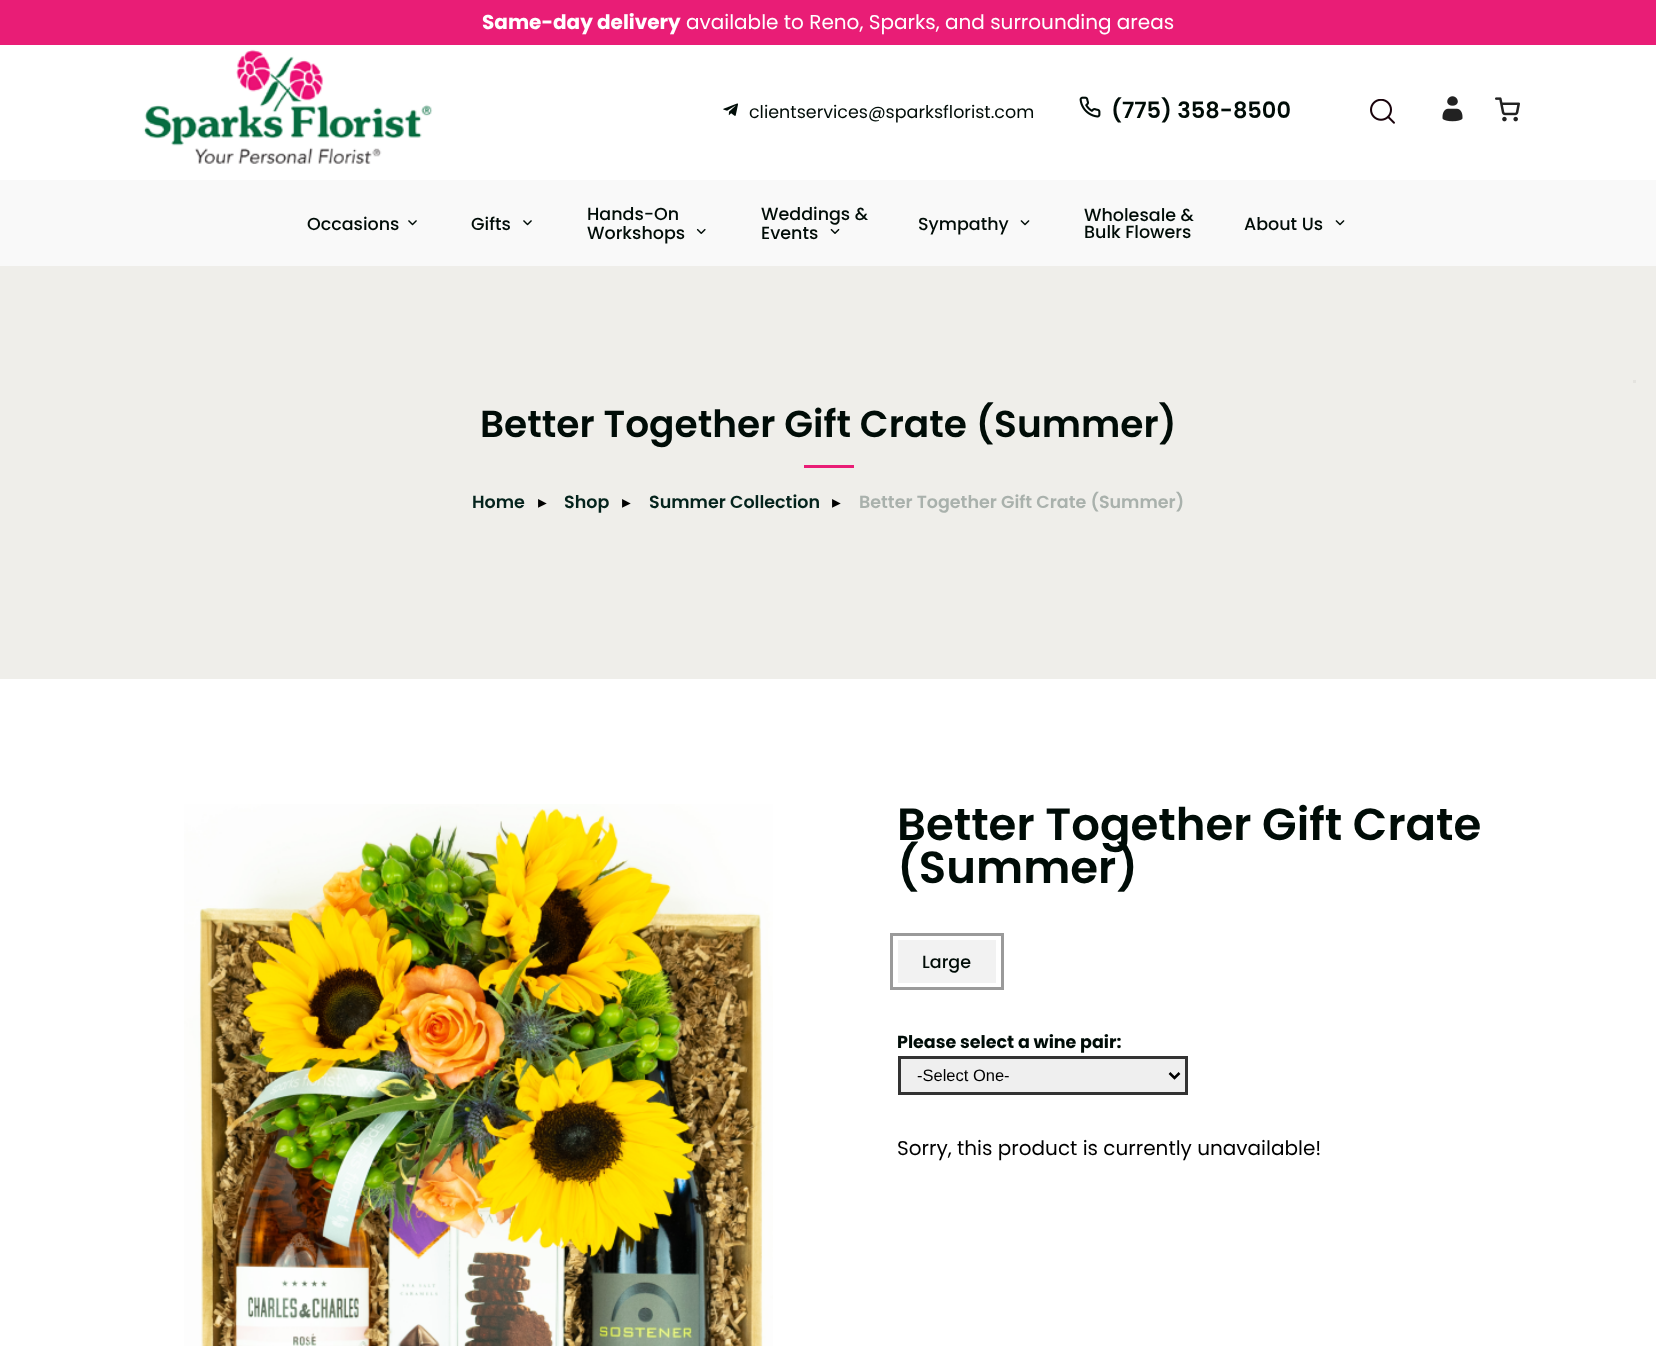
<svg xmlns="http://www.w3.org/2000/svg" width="1656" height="1346">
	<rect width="100%" height="100%" fill="#FFFFFF" />
	<rect x="0" y="0" width="1656" height="45" fill="#E91D76" />
	<text x="482" y="29" font-family="Poppins" font-size="20" font-weight="700" fill="#FFFFFF">Same-day delivery</text>
	<text x="686" y="29" font-family="Poppins" font-size="20" fill="#FFFFFF">available to Reno, Sparks, and surrounding areas</text>
	<image x="143" y="49" width="290" height="115" href="assets/img1.png" />
	<image x="723" y="103" width="15" height="13" href="assets/img2.png" />
	<text x="749" y="118" font-family="Poppins" font-size="17.5" fill="#000C07">clientservices@sparksflorist.com</text>
	<image x="1079" y="96" width="22" height="22" href="assets/img3.png" />
	<text x="1111" y="118" font-family="Poppins" font-size="22.5" font-weight="600" fill="#000C07">(775) 358-8500</text>
	<image x="1370" y="99" width="25" height="25" href="assets/img4.png" />
	<image x="1442" y="96" width="21" height="26" href="assets/img5.png" />
	<image x="1495" y="97" width="25" height="25" href="assets/img6.png" />
	<rect x="0" y="180" width="1656" height="86" fill="#F9F9F9" />
	<text x="307" y="230" font-family="Poppins" font-size="17.5" font-weight="500" fill="#000C07">Occasions</text>
	<image x="408" y="220" width="9" height="6" href="assets/img7.png" />
	<text x="471" y="230" font-family="Poppins" font-size="17.5" font-weight="500" fill="#000C07">Gifts</text>
	<image x="523" y="220" width="9" height="6" href="assets/img7.png" />
	<g font-family="Poppins" font-size="17.5" font-weight="500" fill="#000C07">
		<text x="587" y="220">Hands-On</text>
		<text x="587" y="239">Workshops</text>
	</g>
	<image x="696" y="228" width="10" height="6" href="assets/img8.png" />
	<g font-family="Poppins" font-size="17.5" font-weight="500" fill="#000C07">
		<text x="761" y="220">Weddings &amp;</text>
		<text x="761" y="239">Events</text>
	</g>
	<image x="830" y="228" width="10" height="6" href="assets/img9.png" />
	<text x="918" y="230" font-family="Poppins" font-size="17.5" font-weight="500" fill="#000C07">Sympathy</text>
	<image x="1020" y="220" width="10" height="6" href="assets/img10.png" />
	<g font-family="Poppins" font-size="17.5" font-weight="500" fill="#000C07">
		<text x="1084" y="221">Wholesale &amp;</text>
		<text x="1084" y="238">Bulk Flowers</text>
		<text x="1244" y="230">About Us</text>
	</g>
	<image x="1335" y="220" width="10" height="6" href="assets/img10.png" />
	<rect x="0" y="266" width="1656" height="413" fill="#EFEEEA" />
	<rect x="1633" y="380" width="3" height="3" fill="#E4E3DF" />
	<text x="480" y="437" font-family="Poppins" font-size="37.5" font-weight="600" fill="#000C07">Better Together Gift Crate (Summer)</text>
	<rect x="804" y="465" width="50" height="3" fill="#E91D76" />
	<text x="472" y="508" font-family="Poppins" font-size="17.5" font-weight="600" fill="#04231C">Home</text>
	<text x="538" y="508" font-family="DejaVu Sans" font-size="17.5" fill="#000000">▸</text>
	<text x="564" y="508" font-family="Poppins" font-size="17.5" font-weight="600" fill="#04231C">Shop</text>
	<text x="622" y="508" font-family="DejaVu Sans" font-size="17.5" fill="#000000">▸</text>
	<text x="649" y="508" font-family="Poppins" font-size="17.5" font-weight="600" fill="#04231C">Summer Collection</text>
	<text x="832" y="508" font-family="DejaVu Sans" font-size="17.5" fill="#000000">▸</text>
	<text x="859" y="508" font-family="Poppins" font-size="17.5" font-weight="600" fill="#A9B1AC">Better Together Gift Crate (Summer)</text>
	<image x="184" y="804" width="589" height="542" href="assets/img11.png" />
	<g font-family="Poppins" font-size="45" font-weight="600" fill="#000C07">
		<text x="897" y="840">Better Together Gift Crate</text>
		<text x="897" y="883">(Summer)</text>
	</g>
	<rect x="898" y="940" width="98" height="43" fill="#F2F2F2" />
	<rect x="891.5" y="934.5" width="111" height="54" fill="none" stroke="#9A9A9A" stroke-width="3" />
	<text x="922" y="968" font-family="Poppins" font-size="17.5" font-weight="500" fill="#000C07">Large</text>
	<text x="897" y="1048" font-family="Poppins" font-size="17.5" font-weight="700" fill="#000C07">Please select a wine pair:</text>
	<rect x="899.5" y="1057.5" width="287" height="36" fill="#EFEFEF" stroke="#333333" stroke-width="3" />
	<path d="M1169.5 1073L1174.5 1078L1179.5 1073" fill="none" stroke="#000000" stroke-width="2.5" />
	<text x="917" y="1081" font-family="Liberation Sans" font-size="16.5" fill="#000000">-Select One-</text>
	<text x="897" y="1155" font-family="Poppins" font-size="20" fill="#000000">Sorry, this product is currently unavailable!</text>
</svg>
